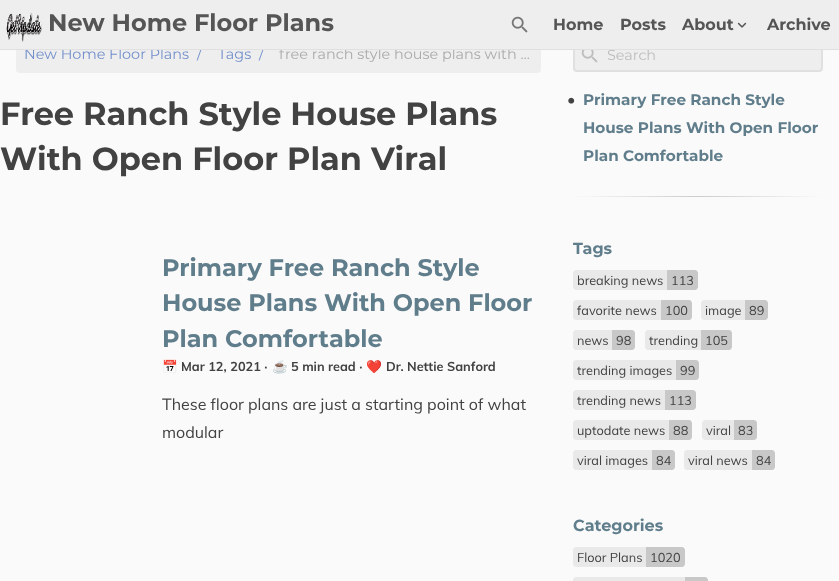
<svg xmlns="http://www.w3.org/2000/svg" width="839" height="581">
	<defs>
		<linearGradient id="g1" gradientUnits="userSpaceOnUse" x1="573" y1="197" x2="823" y2="197"><stop offset="0" stop-color="#FAFAFA" /><stop offset="0.5" stop-color="#CCCCCC" /><stop offset="1" stop-color="#FAFAFA" /></linearGradient>
	</defs>
	<rect width="100%" height="100%" fill="#FAFAFA" />
	<rect x="16" y="37" width="525" height="36" rx="4" fill="#EEEEEE" />
	<g font-family="Montserrat" font-size="14.4" fill="#728FCB">
		<text x="24" y="59">New Home Floor Plans</text>
		<text x="197" y="59">/</text>
		<text x="218" y="59">Tags</text>
		<text x="259" y="59">/</text>
	</g>
	<text x="279" y="59" font-family="Montserrat" font-size="14.4" fill="#AAAAAA">free ranch style house plans with …</text>
	<rect x="574" y="38" width="248" height="33" rx="3" fill="#EEEEEE" stroke="#E0E0E0" stroke-width="2" />
	<rect x="0" y="0" width="612" height="49" fill="#EEEEEE" />
	<text x="607" y="60" font-family="Montserrat" font-size="14.4" fill="#BDBDBD">Search</text>
	<rect x="0" y="49" width="839" height="1" fill="#E0E0E0" />
	<image x="6" y="12" width="36" height="30" href="assets/img1.png" />
	<text x="48" y="31" font-family="Montserrat" font-size="24" font-weight="700" fill="#555555">New Home Floor Plans</text>
	<image x="511" y="16" width="17" height="17" href="assets/img2.png" />
	<text x="553" y="30" font-family="Montserrat" font-size="16" font-weight="700" fill="#555555">Home</text>
	<rect x="612" y="0" width="147" height="39" fill="#EEEEEE" />
	<g font-family="Montserrat" font-size="16" font-weight="700" fill="#555555">
		<text x="620" y="30">Posts</text>
		<text x="682" y="30">About</text>
	</g>
	<image x="737" y="22" width="10" height="6" href="assets/img3.png" />
	<rect x="759" y="0" width="80" height="49" fill="#EEEEEE" />
	<text x="767" y="30" font-family="Montserrat" font-size="16" font-weight="700" fill="#555555">Archive</text>
	<g font-family="Montserrat" font-size="32" font-weight="700" fill="#424242">
		<text x="0" y="125">Free Ranch Style House Plans</text>
		<text x="0" y="170">With Open Floor Plan Viral</text>
	</g>
	<g font-family="Montserrat" font-size="24" font-weight="700" fill="#607D8B">
		<text x="162" y="276">Primary Free Ranch Style</text>
		<text x="162" y="311">House Plans With Open Floor</text>
		<text x="162" y="347">Plan Comfortable</text>
	</g>
	<text x="162" y="371" font-family="Noto Color Emoji" font-size="12.75" font-weight="700" fill="#424242">📅</text>
	<text x="181" y="371" font-family="Muli" font-size="12.75" font-weight="700" fill="#424242">Mar 12, 2021 ·</text>
	<text x="272" y="371" font-family="Noto Color Emoji" font-size="12.75" font-weight="700" fill="#424242">☕</text>
	<text x="291" y="371" font-family="Muli" font-size="12.75" font-weight="700" fill="#424242">5 min read ·</text>
	<text x="366" y="371" font-family="Noto Color Emoji" font-size="12.75" font-weight="700" fill="#424242">❤️</text>
	<text x="386" y="371" font-family="Muli" font-size="12.75" font-weight="700" fill="#424242">Dr. Nettie Sanford</text>
	<g font-family="Muli" font-size="16" fill="#424242">
		<text x="162" y="410">These floor plans are just a starting point of what</text>
		<text x="162" y="438">modular</text>
	</g>
	<image x="581" y="50" width="17" height="13" href="assets/img4.png" />
	<text x="567" y="105" font-family="Muli" font-size="16" fill="#424242">•</text>
	<g font-family="Montserrat" font-size="15.25" font-weight="700" fill="#607D8B">
		<text x="583" y="105">Primary Free Ranch Style</text>
		<text x="583" y="133">House Plans With Open Floor</text>
		<text x="583" y="161">Plan Comfortable</text>
	</g>
	<rect x="573" y="196" width="250" height="1" fill="url(#g1)" />
	<text x="573" y="254" font-family="Montserrat" font-size="16" font-weight="700" fill="#607D8B">Tags</text>
	<path d="M576 270H667V290H576C574.5 290 573 288.5 573 287V273C573 271.5 574.5 270 576 270Z" fill="#E9E9E9" />
	<text x="577" y="285" font-family="Muli" font-size="12.75" fill="#424242">breaking news</text>
	<path d="M667 270H695C696.5 270 698 271.5 698 273V287C698 288.5 696.5 290 695 290H667Z" fill="#C8C8C8" />
	<text x="671" y="285" font-family="Muli" font-size="12.75" fill="#424242">113</text>
	<path d="M576 300H661V320H576C574.5 320 573 318.5 573 317V303C573 301.5 574.5 300 576 300Z" fill="#E9E9E9" />
	<text x="577" y="315" font-family="Muli" font-size="12.75" fill="#424242">favorite news</text>
	<path d="M661 300H689C690.5 300 692 301.5 692 303V317C692 318.5 690.5 320 689 320H661Z" fill="#C8C8C8" />
	<text x="665" y="315" font-family="Muli" font-size="12.75" fill="#424242">100</text>
	<path d="M704 300H745V320H704C702.5 320 701 318.5 701 317V303C701 301.5 702.5 300 704 300Z" fill="#E9E9E9" />
	<text x="705" y="315" font-family="Muli" font-size="12.75" fill="#424242">image</text>
	<path d="M745 300H765C766.5 300 768 301.5 768 303V317C768 318.5 766.5 320 765 320H745Z" fill="#C8C8C8" />
	<text x="749" y="315" font-family="Muli" font-size="12.75" fill="#424242">89</text>
	<path d="M576 330H612V350H576C574.5 350 573 348.5 573 347V333C573 331.5 574.5 330 576 330Z" fill="#E9E9E9" />
	<text x="577" y="345" font-family="Muli" font-size="12.75" fill="#424242">news</text>
	<path d="M612 330H632C633.5 330 635 331.5 635 333V347C635 348.5 633.5 350 632 350H612Z" fill="#C8C8C8" />
	<text x="616" y="345" font-family="Muli" font-size="12.75" fill="#424242">98</text>
	<path d="M648 330H701V350H648C646.5 350 645 348.5 645 347V333C645 331.5 646.5 330 648 330Z" fill="#E9E9E9" />
	<text x="649" y="345" font-family="Muli" font-size="12.75" fill="#424242">trending</text>
	<path d="M701 330H729C730.5 330 732 331.5 732 333V347C732 348.5 730.5 350 729 350H701Z" fill="#C8C8C8" />
	<text x="705" y="345" font-family="Muli" font-size="12.75" fill="#424242">105</text>
	<path d="M576 360H676V380H576C574.5 380 573 378.5 573 377V363C573 361.5 574.5 360 576 360Z" fill="#E9E9E9" />
	<text x="577" y="375" font-family="Muli" font-size="12.75" fill="#424242">trending images</text>
	<path d="M676 360H696C697.5 360 699 361.5 699 363V377C699 378.5 697.5 380 696 380H676Z" fill="#C8C8C8" />
	<text x="680" y="375" font-family="Muli" font-size="12.75" fill="#424242">99</text>
	<path d="M576 390H665V410H576C574.5 410 573 408.5 573 407V393C573 391.5 574.5 390 576 390Z" fill="#E9E9E9" />
	<text x="577" y="405" font-family="Muli" font-size="12.75" fill="#424242">trending news</text>
	<path d="M665 390H693C694.5 390 696 391.5 696 393V407C696 408.5 694.5 410 693 410H665Z" fill="#C8C8C8" />
	<text x="669" y="405" font-family="Muli" font-size="12.75" fill="#424242">113</text>
	<path d="M576 420H669V440H576C574.5 440 573 438.5 573 437V423C573 421.5 574.5 420 576 420Z" fill="#E9E9E9" />
	<text x="577" y="435" font-family="Muli" font-size="12.75" fill="#424242">uptodate news</text>
	<path d="M669 420H689C690.5 420 692 421.5 692 423V437C692 438.5 690.5 440 689 440H669Z" fill="#C8C8C8" />
	<text x="673" y="435" font-family="Muli" font-size="12.75" fill="#424242">88</text>
	<path d="M705 420H734V440H705C703.5 440 702 438.5 702 437V423C702 421.5 703.5 420 705 420Z" fill="#E9E9E9" />
	<text x="706" y="435" font-family="Muli" font-size="12.75" fill="#424242">viral</text>
	<path d="M734 420H754C755.5 420 757 421.5 757 423V437C757 438.5 755.5 440 754 440H734Z" fill="#C8C8C8" />
	<text x="738" y="435" font-family="Muli" font-size="12.75" fill="#424242">83</text>
	<path d="M576 450H652V470H576C574.5 470 573 468.5 573 467V453C573 451.5 574.5 450 576 450Z" fill="#E9E9E9" />
	<text x="577" y="465" font-family="Muli" font-size="12.75" fill="#424242">viral images</text>
	<path d="M652 450H672C673.5 450 675 451.5 675 453V467C675 468.5 673.5 470 672 470H652Z" fill="#C8C8C8" />
	<text x="656" y="465" font-family="Muli" font-size="12.75" fill="#424242">84</text>
	<path d="M687 450H752V470H687C685.5 470 684 468.5 684 467V453C684 451.5 685.5 450 687 450Z" fill="#E9E9E9" />
	<text x="688" y="465" font-family="Muli" font-size="12.75" fill="#424242">viral news</text>
	<path d="M752 450H772C773.5 450 775 451.5 775 453V467C775 468.5 773.5 470 772 470H752Z" fill="#C8C8C8" />
	<text x="756" y="465" font-family="Muli" font-size="12.75" fill="#424242">84</text>
	<text x="573" y="531" font-family="Montserrat" font-size="16" font-weight="700" fill="#607D8B">Categories</text>
	<path d="M576 547H646V567H576C574.5 567 573 565.5 573 564V550C573 548.5 574.5 547 576 547Z" fill="#E9E9E9" />
	<text x="577" y="562" font-family="Muli" font-size="12.75" fill="#424242">Floor Plans</text>
	<path d="M646 547H682C683.5 547 685 548.5 685 550V564C685 565.5 683.5 567 682 567H646Z" fill="#C8C8C8" />
	<text x="650" y="562" font-family="Muli" font-size="12.75" fill="#424242">1020</text>
	<path d="M576 577H685V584H576C574.5 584 573 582.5 573 581V580C573 578.5 574.5 577 576 577Z" fill="#E9E9E9" />
	<path d="M685 577H705C706.5 577 708 578.5 708 580V581C708 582.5 706.5 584 705 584H685Z" fill="#C8C8C8" />
</svg>
